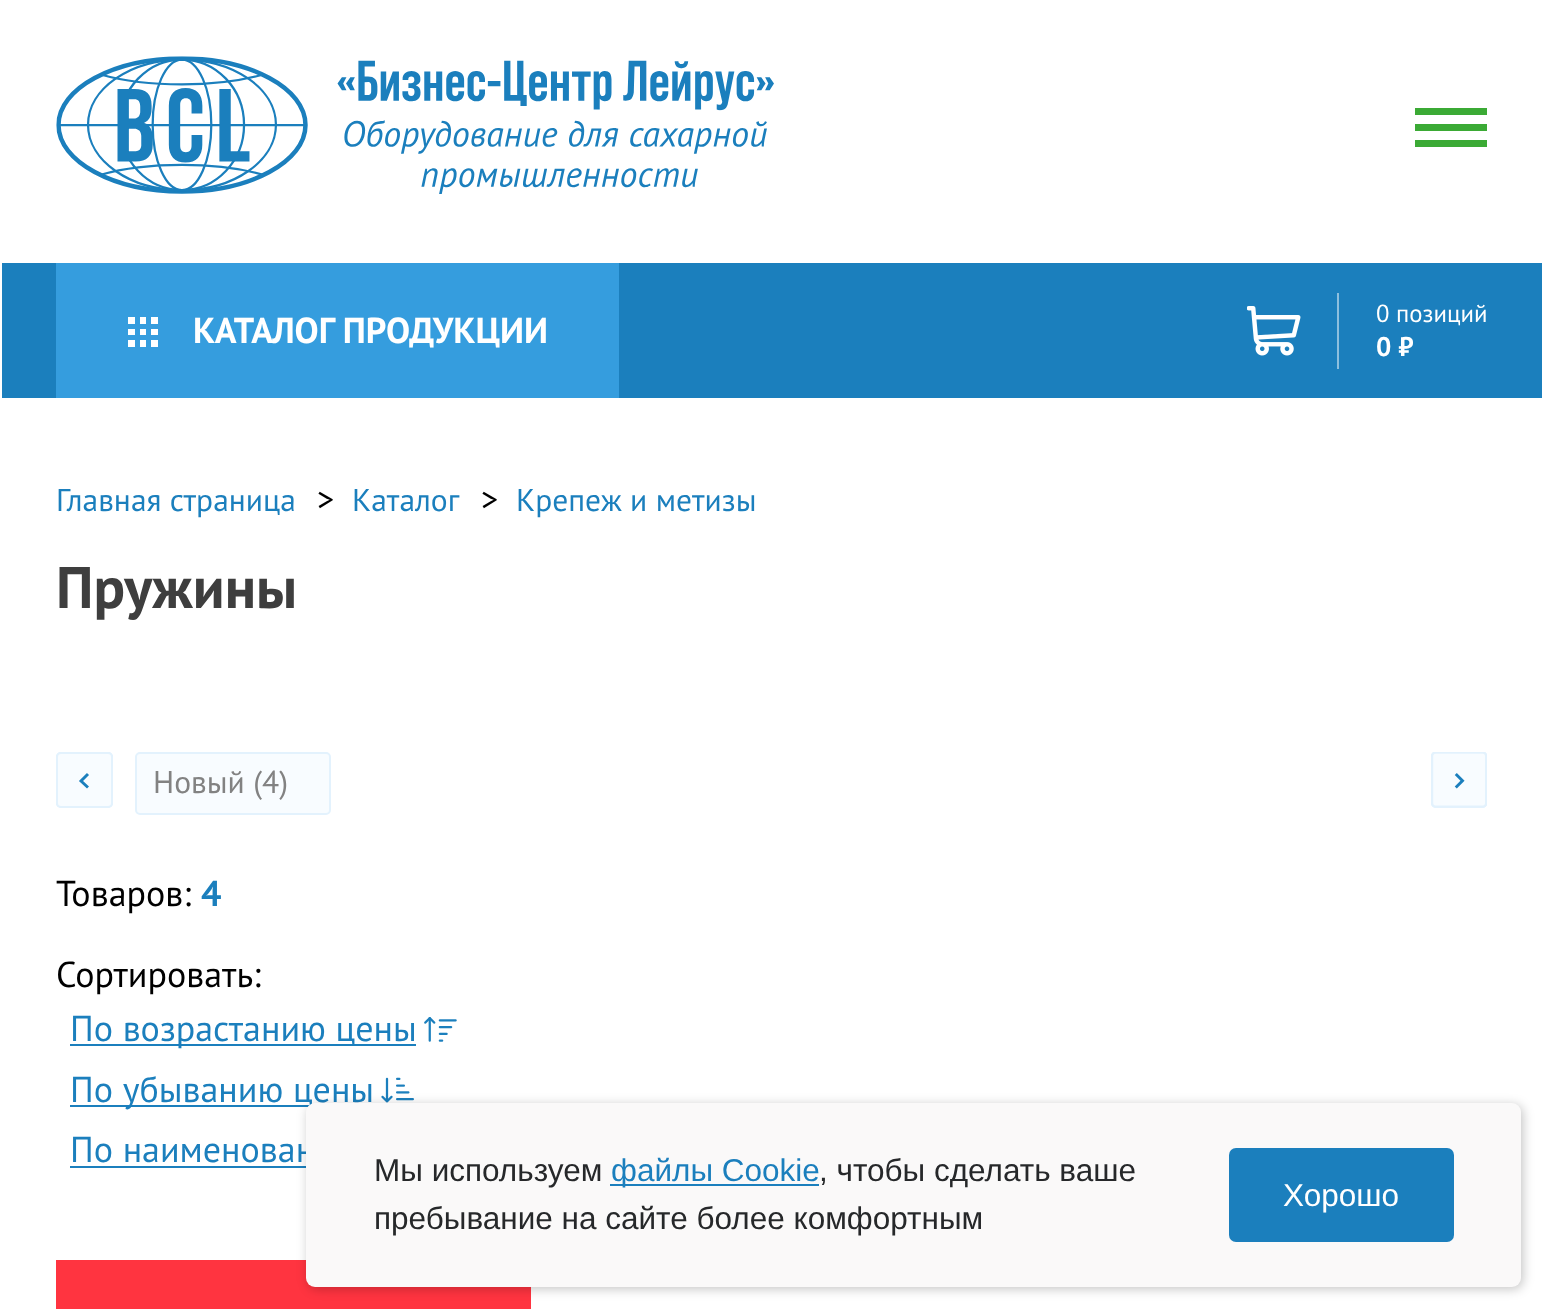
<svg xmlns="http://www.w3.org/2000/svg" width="1542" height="1309">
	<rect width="100%" height="100%" fill="#FFFFFF" />
	<image x="56" y="56" width="718" height="138" href="assets/img1.png" />
	<rect x="1415" y="108" width="72" height="7" fill="#3BAA35" />
	<rect x="1415" y="124" width="72" height="7" fill="#3BAA35" />
	<rect x="1415" y="140" width="72" height="7" fill="#3BAA35" />
	<rect x="2" y="263" width="1540" height="135" fill="#1B7FBD" />
	<rect x="56" y="263" width="563" height="135" fill="#359DDE" />
	<image x="128" y="317" width="30" height="30" href="assets/img2.png" />
	<text x="193" y="343" font-family="PT Sans" font-size="36" font-weight="700" fill="#FFFFFF">КАТАЛОГ ПРОДУКЦИИ</text>
	<rect x="1337" y="293" width="2" height="76" fill="#8DBFDE" />
	<image x="1247" y="306" width="54" height="50" href="assets/img3.png" />
	<text x="1376" y="322" font-family="PT Sans" font-size="24.75" fill="#FFFFFF">0 позиций</text>
	<text x="1376" y="356" font-family="PT Sans" font-size="27" font-weight="700" fill="#FFFFFF">0 ₽</text>
	<text x="56" y="511" font-family="PT Sans" font-size="31.5" fill="#1B7FBD">Главная страница</text>
	<text x="317" y="511" font-family="PT Sans" font-size="34" fill="#000000">&gt;</text>
	<text x="352" y="511" font-family="PT Sans" font-size="31.5" fill="#1B7FBD">Каталог</text>
	<text x="481" y="511" font-family="PT Sans" font-size="34" fill="#000000">&gt;</text>
	<text x="516" y="511" font-family="PT Sans" font-size="31.5" fill="#1B7FBD">Крепеж и метизы</text>
	<text x="56" y="608" font-family="PT Sans" font-size="58.5" font-weight="700" fill="#3E3E3E">Пружины</text>
	<rect x="57" y="753" width="55" height="54" rx="4" fill="none" stroke="#E3F2FD" stroke-width="2" />
	<rect x="57" y="753" width="55" height="54" rx="4" fill="none" stroke="#E3F2FD" stroke-width="2" />
	<rect x="57" y="753" width="55" height="54" rx="4" fill="#F8FCFF" stroke="#E3F2FD" stroke-width="2" />
	<path d="M88 774L81 781L88 787.5" fill="none" stroke="#1B7FBD" stroke-width="2.9" />
	<rect x="136" y="753" width="194" height="61" rx="4" fill="#F8FCFF" stroke="#E3F2FD" stroke-width="2" />
	<text x="153" y="793" font-family="PT Sans" font-size="31.5" fill="#828282">Новый (4)</text>
	<image x="1431" y="752" width="56" height="56" href="assets/img4.png" />
	<text x="56" y="906" font-family="PT Sans" font-size="36" fill="#000000">Товаров:</text>
	<text x="201" y="906" font-family="PT Sans" font-size="36" font-weight="700" fill="#1B7FBD">4</text>
	<text x="56" y="987" font-family="PT Sans" font-size="36" fill="#000000">Сортировать:</text>
	<rect x="70" y="1044" width="346" height="2" fill="#1B7FBD" />
	<text x="70" y="1041" font-family="PT Sans" font-size="36" fill="#1B7FBD">По возрастанию цены</text>
	<image x="424" y="1017" width="33" height="25" href="assets/img5.png" />
	<rect x="70" y="1105" width="240" height="2" fill="#1B7FBD" />
	<text x="70" y="1102" font-family="PT Sans" font-size="36" fill="#1B7FBD">По убыванию цены</text>
	<image x="381" y="1077" width="33" height="26" href="assets/img6.png" />
	<text x="70" y="1162" font-family="PT Sans" font-size="36" fill="#1B7FBD">По наименован</text>
	<rect x="70" y="1166" width="236" height="2" fill="#1B7FBD" />
	<rect x="56" y="1260" width="475" height="49" fill="#FF3440" />
	<rect x="308" y="1105" width="1215" height="184" rx="9" fill="#000000" fill-opacity="0.23" filter="blur(5.5px)" />
	<rect x="306" y="1103" width="1215" height="184" rx="9" fill="#FAF9F9" />
	<text x="374" y="1181" font-family="Liberation Sans" font-size="31.5" fill="#26282A">Мы используем</text>
	<rect x="610" y="1184" width="209" height="2" fill="#1B7FBD" />
	<text x="611" y="1181" font-family="Liberation Sans" font-size="31.5" fill="#1B7FBD">файлы Cookie</text>
	<g font-family="Liberation Sans" font-size="31.5" fill="#26282A">
		<text x="819" y="1181">, чтобы сделать ваше</text>
		<text x="374" y="1229">пребывание на сайте более комфортным</text>
	</g>
	<rect x="1229" y="1148" width="225" height="94" rx="7" fill="#1B7FBD" />
	<text x="1283" y="1206" font-family="Liberation Sans" font-size="31.5" fill="#FFFFFF">Хорошо</text>
</svg>
